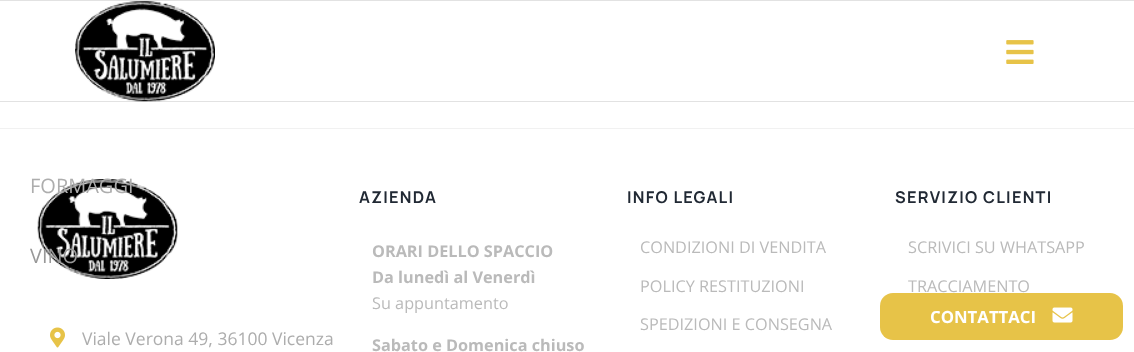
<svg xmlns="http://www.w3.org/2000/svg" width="1134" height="352">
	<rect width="100%" height="100%" fill="#FFFFFF" />
	<rect x="0" y="0" width="1134" height="1" fill="#E2E2E2" />
	<rect x="0" y="101" width="1134" height="1" fill="#E2E2E2" />
	<image x="75" y="1" width="140" height="101" href="assets/img1.png" />
	<image x="1006" y="40" width="28" height="24" href="assets/img2.png" />
	<image x="37" y="179" width="141" height="100" href="assets/img3.png" />
	<text x="30" y="193" font-family="Open Sans" font-size="20" fill="#ADADAD">FORMAGGI</text>
	<text x="30" y="263" font-family="Open Sans" font-size="20" fill="#989898">VINO</text>
	<rect x="0" y="128" width="1134" height="1" fill="#F1F1F1" />
	<text x="359" y="203" font-family="Manrope" font-size="16.25" font-weight="200" letter-spacing="1.25" fill="#212934">AZIENDA</text>
	<g font-family="Open Sans" font-size="16.25" font-weight="700" fill="#BABABA">
		<text x="372" y="257">ORARI DELLO SPACCIO</text>
		<text x="372" y="283">Da lunedì al Venerdì</text>
	</g>
	<text x="372" y="309" font-family="Open Sans" font-size="16.25" fill="#BABABA">Su appuntamento</text>
	<text x="372" y="351" font-family="Open Sans" font-size="16.25" font-weight="700" fill="#BABABA">Sabato e Domenica chiuso</text>
	<text x="627" y="203" font-family="Manrope" font-size="16.25" font-weight="200" letter-spacing="1.25" fill="#212934">INFO LEGALI</text>
	<g font-family="Open Sans" font-size="16.25" fill="#BABABA">
		<text x="640" y="253">CONDIZIONI DI VENDITA</text>
		<text x="640" y="292">POLICY RESTITUZIONI</text>
		<text x="640" y="330">SPEDIZIONI E CONSEGNA</text>
	</g>
	<text x="895" y="203" font-family="Manrope" font-size="16.25" font-weight="200" letter-spacing="1.25" fill="#212934">SERVIZIO CLIENTI</text>
	<g font-family="Open Sans" font-size="16.25" fill="#BABABA">
		<text x="908" y="253">SCRIVICI SU WHATSAPP</text>
		<text x="908" y="292">TRACCIAMENTO</text>
	</g>
	<image x="50" y="327" width="15" height="21" href="assets/img4.png" />
	<text x="82" y="345" font-family="Open Sans" font-size="17.5" fill="#ADADAD">Viale Verona 49, 36100 Vicenza</text>
	<rect x="880" y="293" width="243" height="47" rx="13" fill="#E7C348" />
	<text x="930" y="323" font-family="Open Sans" font-size="16.75" font-weight="700" fill="#FFFFFF">CONTATTACI</text>
	<image x="1052" y="307" width="21" height="16" href="assets/img5.png" />
</svg>
